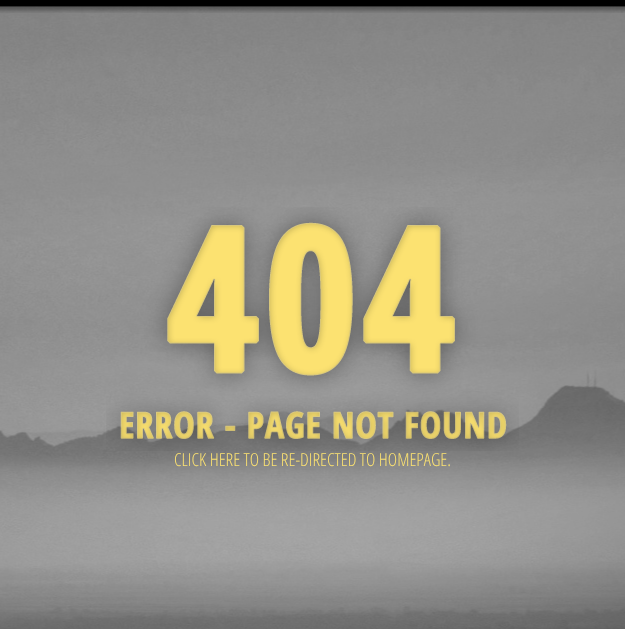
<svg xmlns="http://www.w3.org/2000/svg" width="625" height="629">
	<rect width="100%" height="100%" fill="#FFFFFF" />
	<image x="0" y="6" width="625" height="623" href="assets/img1.png" />
	<image x="0" y="0" width="625" height="13" href="assets/img2.png" />
	<image x="106" y="207" width="413" height="244" href="assets/img3.png" />
	<text x="174" y="466" font-family="Open Sans Condensed" font-size="18" font-weight="300" fill="#FCE271">CLICK HERE TO BE RE-DIRECTED TO HOMEPAGE.</text>
</svg>
